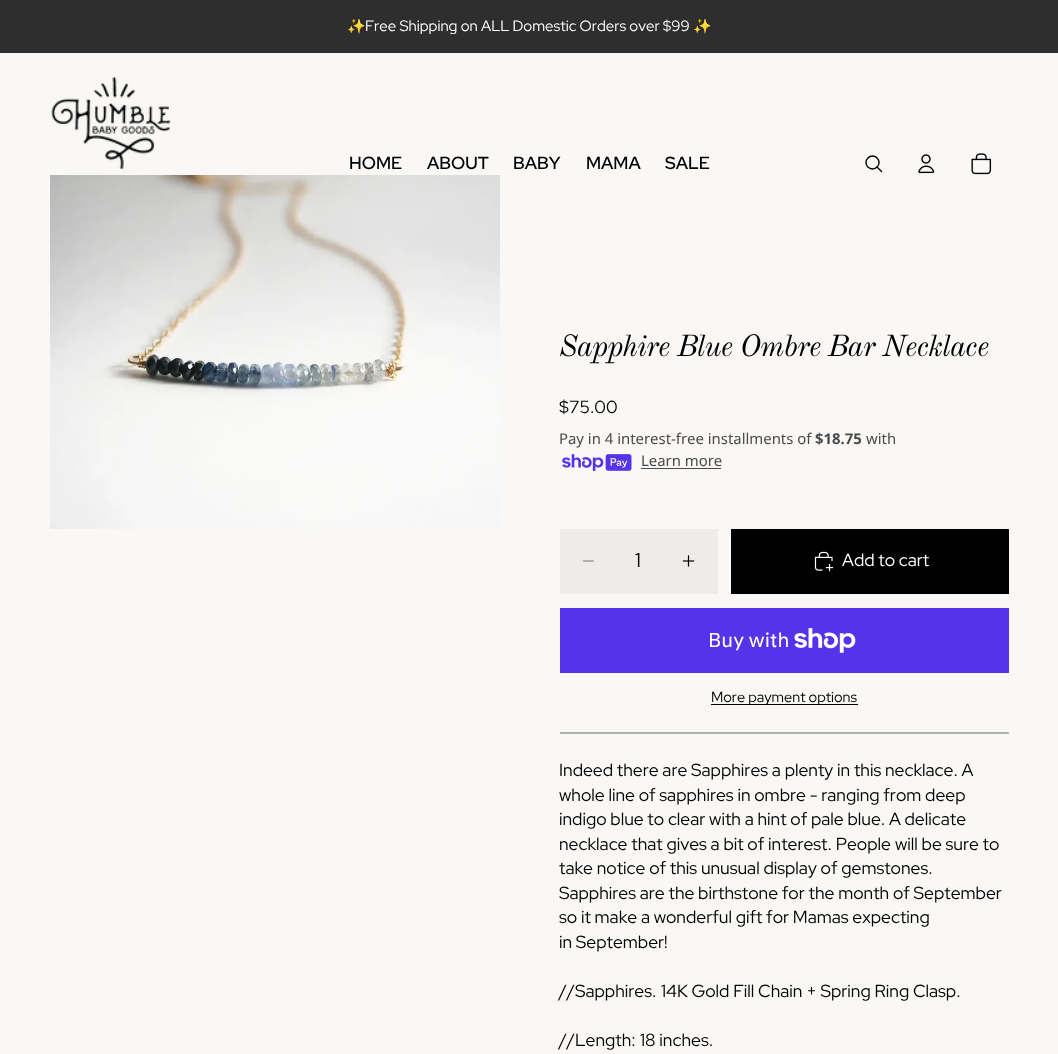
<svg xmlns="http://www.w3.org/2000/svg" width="1058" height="1054">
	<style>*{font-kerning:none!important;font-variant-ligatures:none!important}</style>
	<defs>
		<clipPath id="clip1"><rect x="105" y="19" width="849" height="15" /></clipPath>
	</defs>
	<rect width="100%" height="100%" fill="#F9F8F6" />
	<rect x="0" y="0" width="1058" height="53" fill="#2E2E2E" />
	<g clip-path="url(#clip1)">
		<text x="347" y="31" font-family="Noto Color Emoji" font-size="15" fill="#FFFFFF">✨</text>
		<text x="365" y="31" font-family="Red Hat Display" font-size="15" fill="#FFFFFF">Free Shipping on ALL Domestic Orders over $99</text>
		<text x="693" y="31" font-family="Noto Color Emoji" font-size="15" fill="#FFFFFF">✨</text>
	</g>
	<image x="51" y="76" width="120" height="93" href="assets/img1.png" />
	<g font-family="Red Hat Display" font-size="17.5" font-weight="600" fill="#000000">
		<text x="349" y="169">HOME</text>
		<text x="427" y="169">ABOUT</text>
		<text x="513" y="169">BABY</text>
		<text x="586" y="169">MAMA</text>
		<text x="665" y="169">SALE</text>
	</g>
	<circle cx="872.5" cy="162.5" r="6.5" fill="none" stroke="#000000" stroke-width="1.4" />
	<path d="M877 167L881.5 171.5" fill="none" stroke="#000000" stroke-width="1.4" stroke-linecap="round" stroke-linejoin="round" />
	<image x="918" y="154" width="17" height="20" href="assets/img2.png" />
	<image x="971" y="153" width="21" height="22" href="assets/img3.png" />
	<image x="50" y="175" width="450" height="354" href="assets/img4.png" />
	<text x="559" y="356" font-family="Old Standard TT" font-size="30" font-style="italic" letter-spacing="-0.9" fill="#000000">Sapphire Blue Ombre Bar Necklace</text>
	<text x="559" y="413" font-family="Red Hat Display" font-size="17.5" fill="#000000">$75.00</text>
	<text x="559" y="444" font-family="Noto Sans" font-size="14.9" fill="#4B4A4A">Pay in 4 interest-free installments of</text>
	<text x="815" y="444" font-family="Noto Sans" font-size="14.9" font-weight="700" fill="#4B4A4A">$18.75</text>
	<text x="866" y="444" font-family="Noto Sans" font-size="14.9" fill="#4B4A4A">with</text>
	<image x="562" y="454" width="70" height="17" href="assets/img5.png" />
	<text x="641" y="466" font-family="Noto Sans" font-size="14.9" fill="#4B4A4A">Learn more</text>
	<rect x="641" y="468" width="80" height="1" fill="#4B4A4A" />
	<rect x="560" y="529" width="158" height="65" fill="#EDECEA" />
	<path d="M583.5 561H593.5" fill="none" stroke="#777675" stroke-width="1.2" stroke-linecap="round" />
	<text x="635" y="567" font-family="Red Hat Display" font-size="20" fill="#000000">1</text>
	<image x="682" y="555" width="13" height="12" href="assets/img6.png" />
	<rect x="731" y="529" width="278" height="65" fill="#000000" />
	<image x="814" y="551" width="20" height="21" href="assets/img7.png" />
	<text x="842" y="566" font-family="Red Hat Display" font-size="17.5" fill="#FFFFFF">Add to cart</text>
	<rect x="560" y="608" width="449" height="65" fill="#5433EB" />
	<text x="708" y="647" font-family="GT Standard" font-size="20" fill="#FFFFFF">Buy with</text>
	<image x="794" y="628" width="62" height="25" href="assets/img8.png" />
	<rect x="711" y="704" width="147" height="1" fill="#000000" />
	<text x="711" y="702" font-family="Red Hat Display" font-size="14.5" fill="#000000">More payment options</text>
	<path d="M1009 732.5V734L1007.5 732.5Z" fill="#B3B3B1" />
	<path d="M1009 734H560V732H1008Z" fill="#000000" fill-opacity="0.28" />
	<g font-family="Red Hat Display" font-size="17.5" fill="#000000">
		<text x="559" y="776">Indeed there are Sapphires a plenty in this necklace. A</text>
		<text x="559" y="801">whole line of sapphires in ombre - ranging from deep</text>
		<text x="559" y="825">indigo blue to clear with a hint of pale blue. A delicate</text>
		<text x="559" y="850">necklace that gives a bit of interest. People</text>
		<text x="895" y="850">will be sure to</text>
		<text x="559" y="874">take notice of this unusual display of gemstones.</text>
		<text x="559" y="899">Sapphires are the birthstone for the month of September</text>
		<text x="559" y="923">so it make a wonderful gift for Mamas expecting</text>
		<text x="559" y="948">in September!</text>
		<text x="559" y="997">//Sapphires.</text>
		<text x="661" y="997">14K Gold Fill Chain + Spring Ring Clasp.</text>
		<text x="559" y="1046">//Length:</text>
		<text x="640" y="1046">18 inches.</text>
	</g>
</svg>
